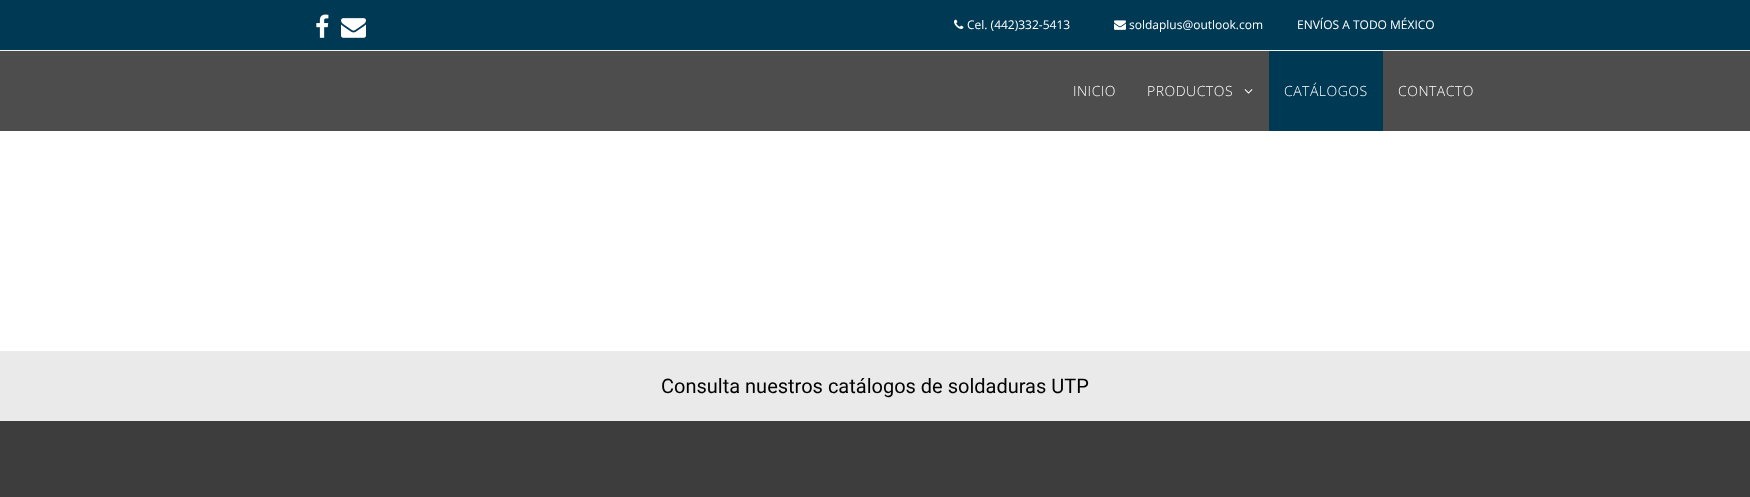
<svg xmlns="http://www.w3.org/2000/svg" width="1750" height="497">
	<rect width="100%" height="100%" fill="#FFFFFF" />
	<rect x="0" y="0" width="1750" height="50" fill="#003954" />
	<rect x="0" y="50" width="1750" height="1" fill="#F1F1F1" />
	<image x="316" y="14" width="13" height="24" href="assets/img1.png" />
	<image x="341" y="18" width="25" height="20" href="assets/img2.png" />
	<image x="954" y="19" width="10" height="10" href="assets/img3.png" />
	<text x="967" y="29" font-family="Open Sans" font-size="12" fill="#FFFFFF">Cel. (442)332-5413</text>
	<image x="1114" y="20" width="12" height="10" href="assets/img4.png" />
	<g font-family="Open Sans" font-size="12" fill="#FFFFFF">
		<text x="1129" y="29">soldaplus@outlook.com</text>
		<text x="1297" y="29">ENVÍOS A TODO MÉXICO</text>
	</g>
	<rect x="0" y="51" width="1750" height="80" fill="#4D4D4D" />
	<g font-family="Open Sans" font-size="14" font-weight="300" letter-spacing="0.5" fill="#FFFFFF">
		<text x="1073" y="96">INICIO</text>
		<text x="1147" y="96">PRODUCTOS</text>
	</g>
	<image x="1244" y="89" width="9" height="5" href="assets/img5.png" />
	<rect x="1269" y="51" width="114" height="80" fill="#003954" />
	<g font-family="Open Sans" font-size="14" font-weight="300" letter-spacing="0.5" fill="#FFFFFF">
		<text x="1284" y="96">CATÁLOGOS</text>
		<text x="1398" y="96">CONTACTO</text>
	</g>
	<rect x="0" y="351" width="1750" height="70" fill="#EAEAEA" />
	<text x="661" y="393" font-family="Roboto" font-size="20" fill="#000000">Consulta nuestros catálogos de soldaduras UTP</text>
	<rect x="0" y="421" width="1750" height="76" fill="#3D3D3D" />
</svg>
